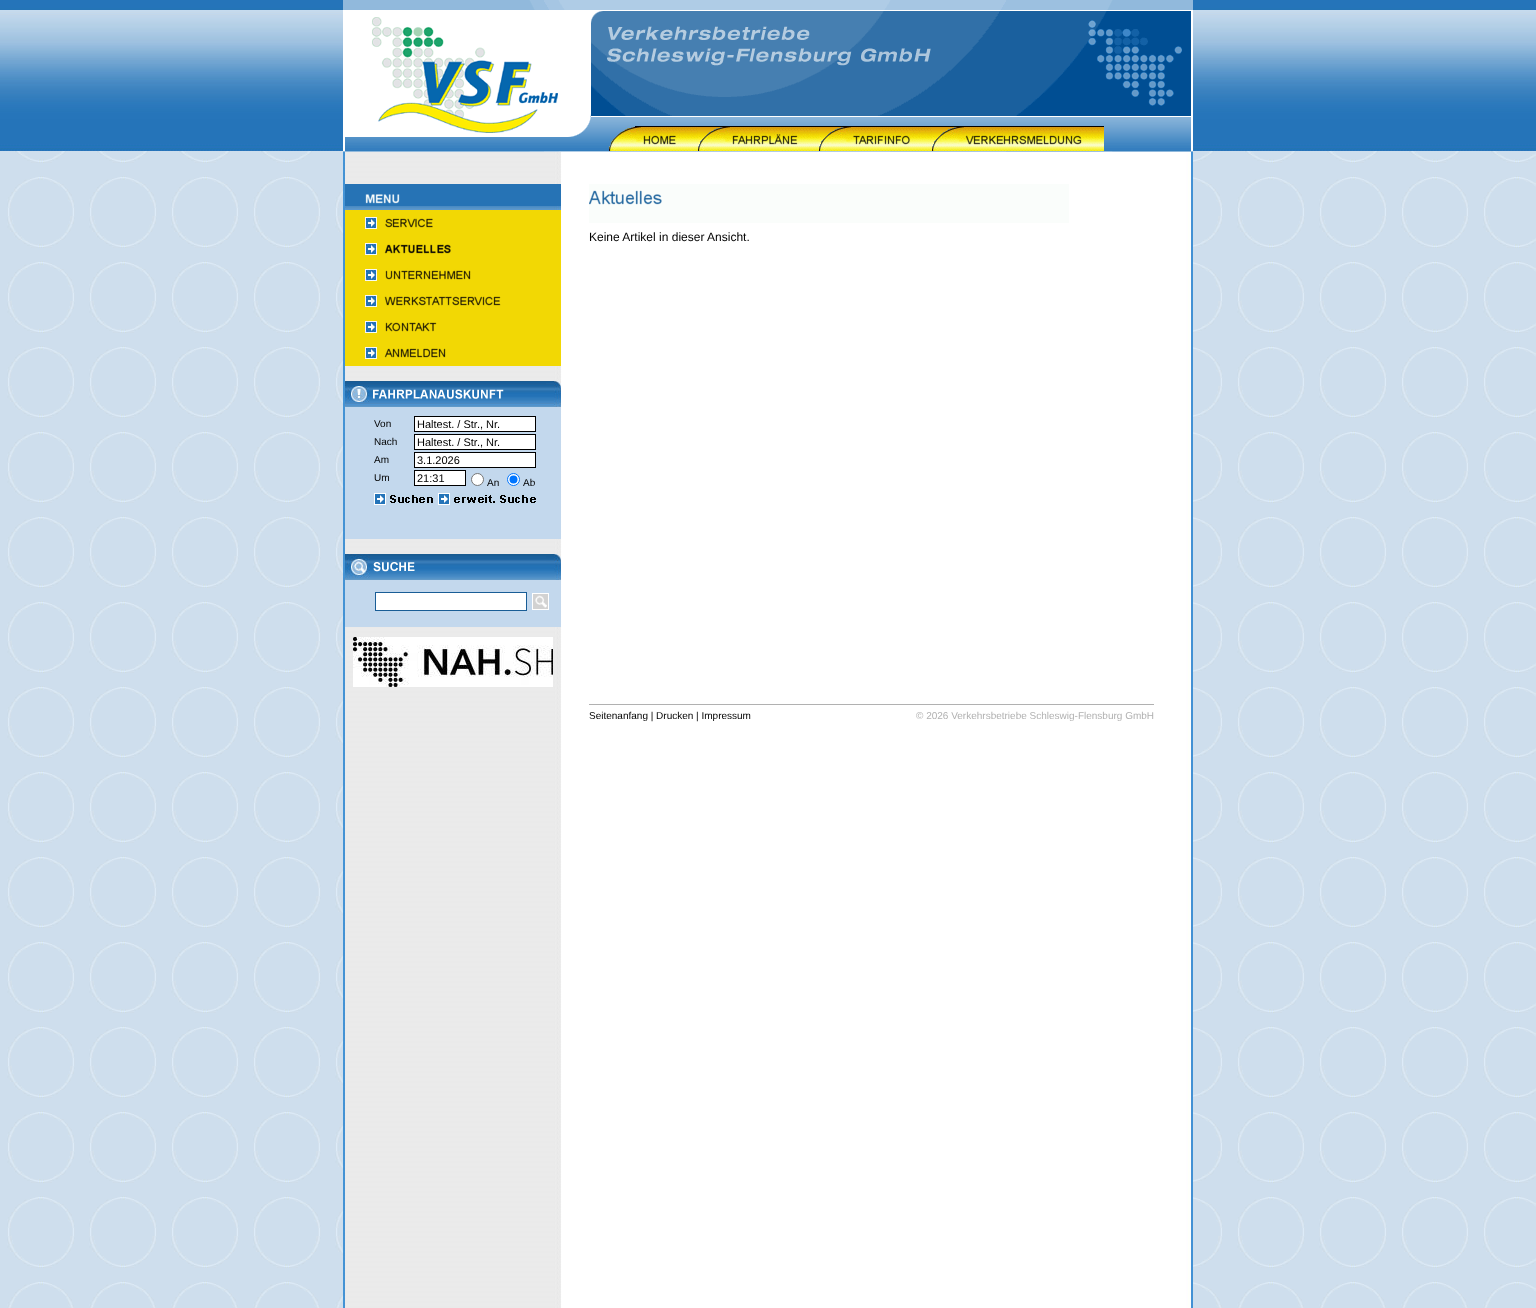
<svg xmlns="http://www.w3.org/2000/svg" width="1536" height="1308">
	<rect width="100%" height="100%" fill="#FFFFFF" />
	<image x="0" y="151" width="1536" height="1157" href="assets/img1.png" />
	<image x="0" y="0" width="1536" height="151" href="assets/img2.png" />
	<image x="343" y="152" width="850" height="1156" href="assets/img3.png" />
	<image x="343" y="0" width="850" height="152" href="assets/img4.png" />
	<image x="609" y="126" width="89" height="25" href="assets/img5.png" />
	<image x="698" y="126" width="121" height="20" href="assets/img6.png" />
	<image x="698" y="127" width="121" height="24" href="assets/img7.png" />
	<image x="819" y="126" width="113" height="20" href="assets/img8.png" />
	<image x="819" y="127" width="113" height="24" href="assets/img9.png" />
	<image x="932" y="126" width="172" height="20" href="assets/img10.png" />
	<image x="932" y="127" width="172" height="24" href="assets/img11.png" />
	<image x="345" y="206" width="216" height="4" href="assets/img12.png" />
	<image x="345" y="184" width="216" height="22" href="assets/img13.png" />
	<image x="345" y="210" width="216" height="26" href="assets/img14.png" />
	<image x="345" y="236" width="216" height="26" href="assets/img15.png" />
	<image x="345" y="262" width="216" height="26" href="assets/img16.png" />
	<image x="345" y="288" width="216" height="26" href="assets/img17.png" />
	<image x="345" y="314" width="216" height="26" href="assets/img18.png" />
	<image x="345" y="340" width="216" height="26" href="assets/img19.png" />
	<rect x="345" y="407" width="216" height="132" fill="#C3D8ED" />
	<image x="345" y="381" width="216" height="26" href="assets/img20.png" />
	<text x="374" y="427" font-family="Liberation Sans" font-size="10" fill="#000000">Von</text>
	<rect x="414.5" y="416.5" width="121" height="15" fill="#FFFFFF" stroke="#000000" />
	<text x="417" y="428" font-family="Liberation Sans" font-size="11" fill="#000000">Haltest. / Str., Nr.</text>
	<text x="374" y="445" font-family="Liberation Sans" font-size="10" fill="#000000">Nach</text>
	<rect x="414.5" y="434.5" width="121" height="15" fill="#FFFFFF" stroke="#000000" />
	<text x="417" y="446" font-family="Liberation Sans" font-size="11" fill="#000000">Haltest. / Str., Nr.</text>
	<text x="374" y="463" font-family="Liberation Sans" font-size="10" fill="#000000">Am</text>
	<rect x="414.5" y="452.5" width="121" height="15" fill="#FFFFFF" stroke="#000000" />
	<text x="417" y="464" font-family="Liberation Sans" font-size="11" fill="#000000">3.1.2026</text>
	<text x="374" y="481" font-family="Liberation Sans" font-size="10" fill="#000000">Um</text>
	<rect x="414.5" y="470.5" width="51" height="15" fill="#FFFFFF" stroke="#000000" />
	<text x="417" y="482" font-family="Liberation Sans" font-size="11" fill="#000000">21:31</text>
	<circle cx="477.5" cy="479.5" r="6" fill="#FFFFFF" stroke="#767676" />
	<text x="487" y="486" font-family="Liberation Sans" font-size="10" fill="#000000">An</text>
	<circle cx="513.5" cy="479.5" r="6" fill="#FFFFFF" stroke="#0075FF" />
	<circle cx="513.5" cy="479.5" r="4" fill="#0075FF" />
	<text x="523" y="486" font-family="Liberation Sans" font-size="10" fill="#000000">Ab</text>
	<image x="374" y="493" width="59" height="12" href="assets/img21.png" />
	<image x="438" y="493" width="98" height="12" href="assets/img22.png" />
	<rect x="345" y="580" width="216" height="47" fill="#C3D8ED" />
	<image x="345" y="554" width="216" height="26" href="assets/img23.png" />
	<rect x="375.5" y="592.5" width="151" height="18" fill="#FFFFFF" stroke="#195D96" />
	<image x="532" y="593" width="17" height="17" href="assets/img24.png" />
	<image x="353" y="637" width="200" height="50" href="assets/img25.png" />
	<image x="589" y="184" width="480" height="39" href="assets/img26.png" />
	<text x="589" y="241" font-family="Liberation Sans" font-size="12" fill="#000000">Keine Artikel in dieser Ansicht.</text>
	<rect x="589" y="704" width="565" height="1" fill="#B1B1B1" />
	<text x="589" y="719" font-family="Liberation Sans" font-size="10" fill="#000000">Seitenanfang | Drucken | Impressum</text>
	<text x="916" y="719" font-family="Liberation Sans" font-size="10" fill="#B1B1B1">© 2026 Verkehrsbetriebe Schleswig-Flensburg GmbH</text>
</svg>
